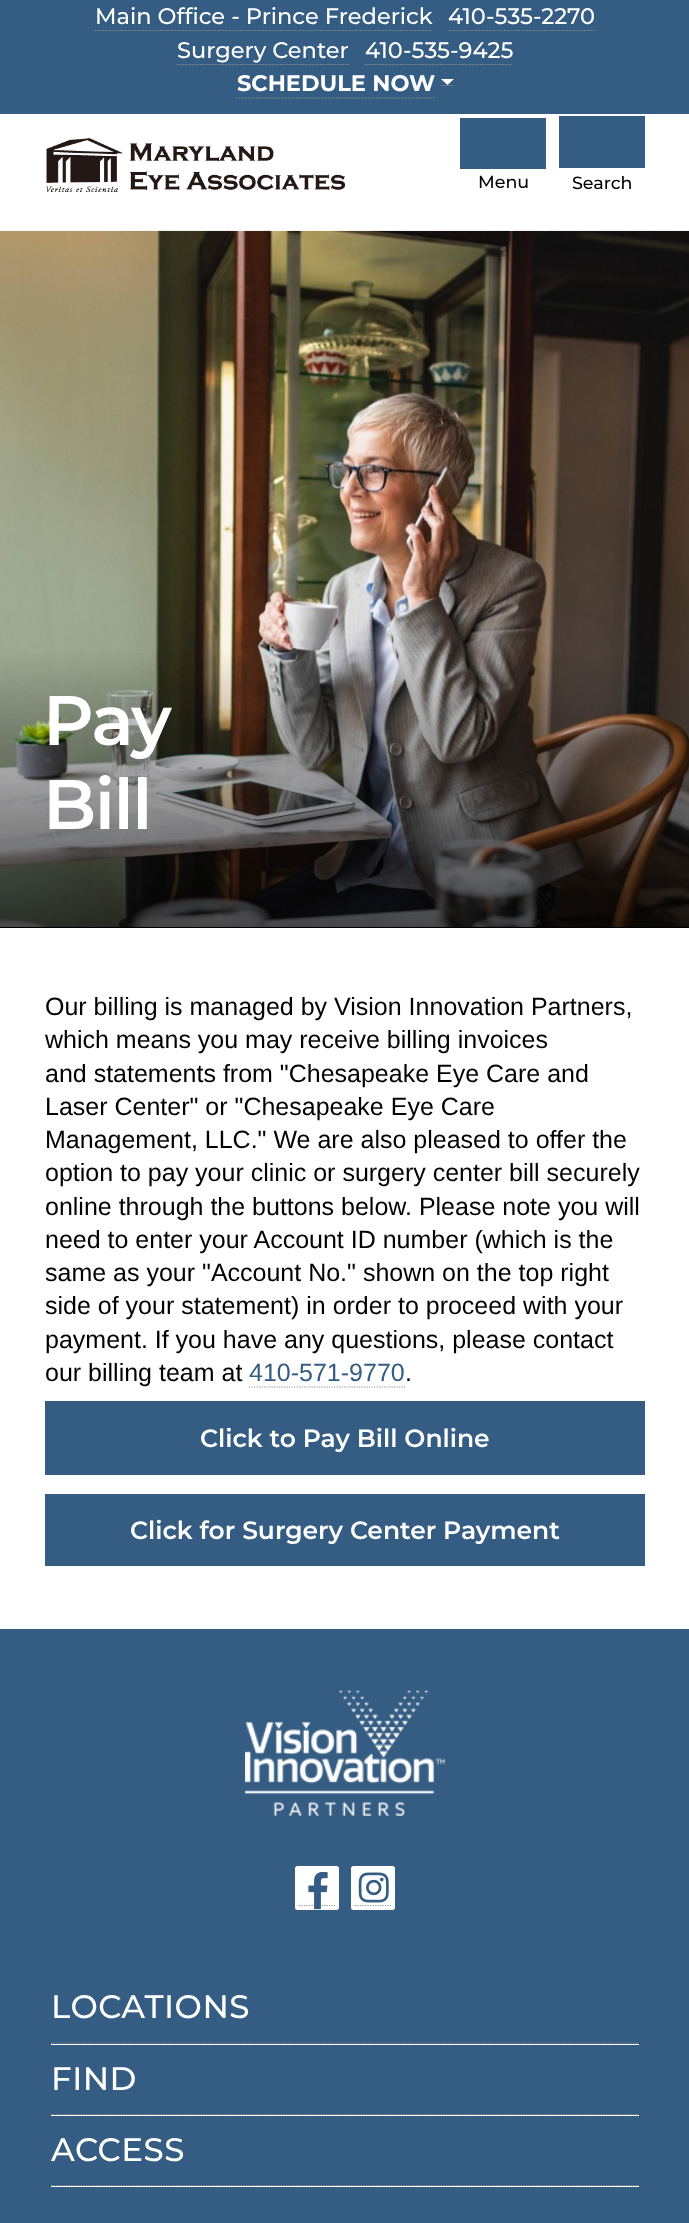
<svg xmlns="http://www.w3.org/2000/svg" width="689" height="2223">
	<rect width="100%" height="100%" fill="#FFFFFF" />
	<rect x="0" y="0" width="689" height="114" fill="#355C82" />
	<text x="95" y="24" font-family="Montserrat" font-size="22.5" font-weight="500" fill="#FFFFFF">Main Office - Prince Frederick</text>
	<path d="M95 30.5H432.5" fill="none" stroke="#8E8F8E" stroke-width="1.2" stroke-dasharray="1.25 1.25" />
	<text x="448" y="24" font-family="Montserrat" font-size="22.5" font-weight="500" fill="#FFFFFF">410-535-2270</text>
	<path d="M449 30.5H595" fill="none" stroke="#8E8F8E" stroke-width="1.2" stroke-dasharray="1.25 1.25" />
	<text x="177" y="58" font-family="Montserrat" font-size="22.5" font-weight="500" fill="#FFFFFF">Surgery Center</text>
	<path d="M177.5 64.5H349" fill="none" stroke="#8E8F8E" stroke-width="1.2" stroke-dasharray="1.25 1.25" />
	<text x="365" y="58" font-family="Montserrat" font-size="22.5" font-weight="500" fill="#FFFFFF">410-535-9425</text>
	<path d="M365 64.5H512.5" fill="none" stroke="#8E8F8E" stroke-width="1.2" stroke-dasharray="1.25 1.25" />
	<path d="M236 98H435" fill="none" stroke="#8E8F8E" stroke-width="1.2" stroke-dasharray="1.25 1.25" />
	<path d="M441 85.5H454" fill="none" stroke="#8E8F8E" stroke-width="1.2" stroke-dasharray="1.25 1.25" />
	<text x="237" y="91" font-family="Montserrat" font-size="22.5" font-weight="700" fill="#FFFFFF">SCHEDULE NOW</text>
	<path d="M441 79H454L447.5 85Z" fill="#FFFFFF" />
	<image x="46" y="138" width="299" height="54" href="assets/img1.png" />
	<rect x="460" y="118" width="86" height="51" fill="#355C82" />
	<text x="478" y="188" font-family="Montserrat" font-size="17.5" font-weight="500" fill="#000000">Menu</text>
	<rect x="559" y="116" width="86" height="52" fill="#355C82" />
	<text x="572" y="189" font-family="Montserrat" font-size="17.5" font-weight="500" fill="#000000">Search</text>
	<rect x="0" y="927" width="689" height="1" fill="#000000" />
	<image x="0" y="230" width="689" height="697" href="assets/img2.png" />
	<g font-family="Montserrat" font-size="70" font-weight="600" letter-spacing="-1.5" fill="#FFFFFF">
		<text x="43" y="745">Pay</text>
		<text x="43" y="829">Bill</text>
	</g>
	<g font-family="Liberation Sans" font-size="25" fill="#000000">
		<text x="45" y="1015">Our billing is managed by Vision Innovation Partners,</text>
		<text x="45" y="1048">which means you may receive billing invoices</text>
		<text x="45" y="1082">and statements from "Chesapeake Eye Care and</text>
		<text x="45" y="1115">Laser Center" or "Chesapeake Eye Care</text>
		<text x="45" y="1148">Management, LLC." We are also pleased to offer the</text>
		<text x="45" y="1181">option to pay your clinic or surgery center bill securely</text>
		<text x="45" y="1215">online through the buttons below. Please note you will</text>
		<text x="45" y="1248">need to enter your Account ID number (which is the</text>
		<text x="45" y="1281">same as your "Account No." shown on the top right</text>
		<text x="45" y="1314">side of your statement) in order to proceed with your</text>
		<text x="45" y="1348">payment. If you have any questions, please contact</text>
		<text x="45" y="1381">our billing team at</text>
	</g>
	<text x="249" y="1381" font-family="Liberation Sans" font-size="25" fill="#355C82">410-571-9770</text>
	<path d="M249 1387H405" fill="none" stroke="#8E8F8E" stroke-width="1.2" stroke-dasharray="1.25 1.25" />
	<text x="405" y="1381" font-family="Liberation Sans" font-size="25" fill="#000000">.</text>
	<rect x="45" y="1401" width="600" height="74" fill="#355C82" />
	<text x="200" y="1447" font-family="Montserrat" font-size="25" font-weight="600" fill="#FFFFFF">Click to Pay Bill Online</text>
	<rect x="45" y="1494" width="600" height="72" fill="#355C82" />
	<text x="130" y="1539" font-family="Montserrat" font-size="25" font-weight="600" fill="#FFFFFF">Click for Surgery Center Payment</text>
	<rect x="0" y="1629" width="689" height="594" fill="#355C82" />
	<image x="245" y="1690" width="200" height="126" href="assets/img3.png" />
	<rect x="295" y="1866" width="44" height="44" rx="2.5" fill="#FFFFFF" />
	<path d="M299 1905.5H335" fill="none" stroke="#8E8F8E" stroke-width="1.2" stroke-dasharray="1.25 1.25" />
	<image x="308" y="1872" width="20" height="38" href="assets/img4.png" />
	<rect x="351" y="1866" width="44" height="44" rx="2.5" fill="#FFFFFF" />
	<path d="M355 1905.5H391" fill="none" stroke="#8E8F8E" stroke-width="1.2" stroke-dasharray="1.25 1.25" />
	<image x="358" y="1872" width="31" height="31" href="assets/img5.png" />
	<path d="M51 2043H639" fill="none" stroke="#8E8F8E" stroke-width="1.2" stroke-dasharray="1.25 1.25" />
	<text x="51" y="2018" font-family="Montserrat" font-size="32.5" font-weight="500" letter-spacing="0.5" fill="#FFFFFF">LOCATIONS</text>
	<rect x="51" y="2044" width="588" height="1" fill="#FFFFFF" />
	<path d="M51 2114.5H639" fill="none" stroke="#8E8F8E" stroke-width="1.2" stroke-dasharray="1.25 1.25" />
	<text x="51" y="2090" font-family="Montserrat" font-size="32.5" font-weight="500" letter-spacing="0.5" fill="#FFFFFF">FIND</text>
	<rect x="51" y="2115" width="588" height="1" fill="#FFFFFF" />
	<path d="M51 2185.5H639" fill="none" stroke="#8E8F8E" stroke-width="1.2" stroke-dasharray="1.25 1.25" />
	<text x="51" y="2161" font-family="Montserrat" font-size="32.5" font-weight="500" letter-spacing="0.5" fill="#FFFFFF">ACCESS</text>
	<rect x="51" y="2186" width="588" height="1" fill="#FFFFFF" />
</svg>
